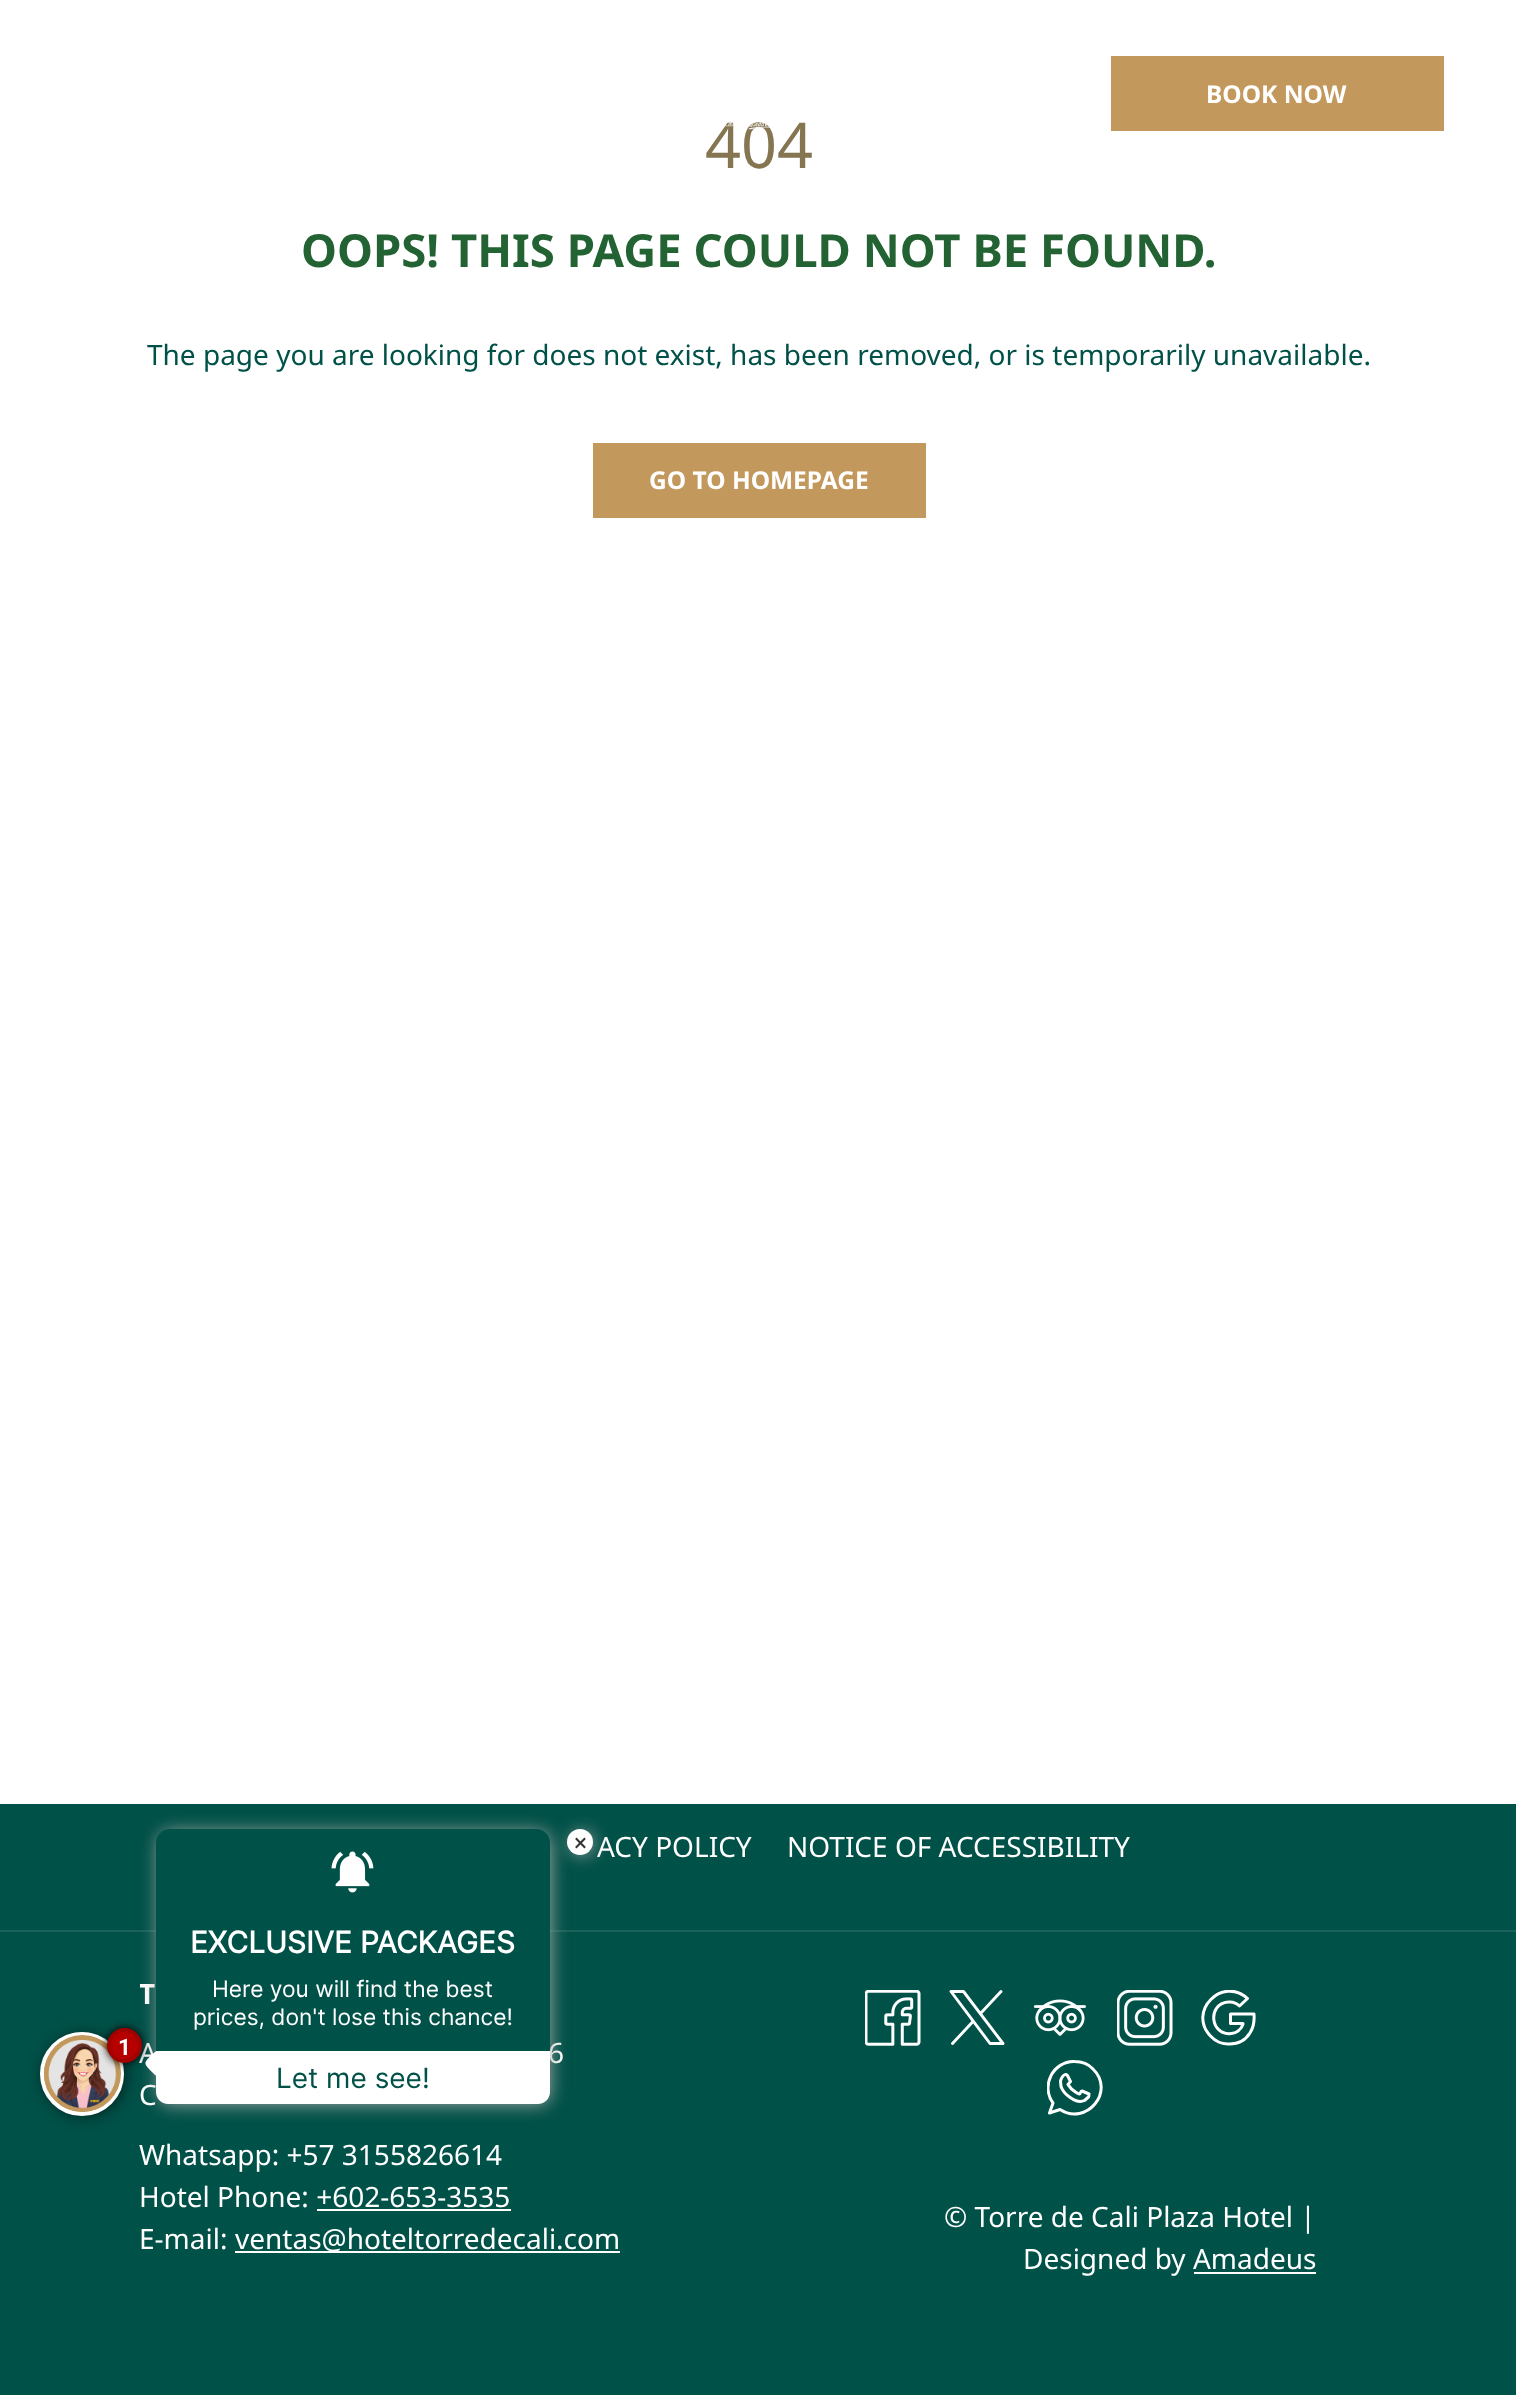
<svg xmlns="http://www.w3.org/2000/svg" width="1516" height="2395">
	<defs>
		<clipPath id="clip1"><rect x="140" y="1972" width="705" height="382" /></clipPath>
		<clipPath id="clip2"><rect x="1201" y="1990" width="56" height="56" /></clipPath>
		<clipPath id="clip3"><rect x="1047" y="2060" width="56" height="56" /></clipPath>
	</defs>
	<rect width="100%" height="100%" fill="#FFFFFF" />
	<rect x="1111" y="56" width="333" height="75" fill="#C2985C" />
	<text x="1206" y="103" font-family="Noto Sans" font-size="24.5" font-weight="700" fill="#FFFFFF">BOOK NOW</text>
	<text x="705" y="168" font-family="Noto Sans" font-size="63" fill="#857551">404</text>
	<image x="725" y="122" width="45" height="8" href="assets/img1.png" />
	<text x="301" y="267" font-family="Noto Sans" font-size="45.5" font-weight="700" fill="#236232">OOPS! THIS PAGE COULD NOT BE FOUND.</text>
	<text x="147" y="365" font-family="Noto Sans" font-size="28" fill="#005148">The page you are looking for does not exist, has been removed, or is temporarily unavailable.</text>
	<rect x="593" y="443" width="333" height="75" fill="#C2985C" />
	<text x="649" y="489" font-family="Noto Sans" font-size="24.5" font-weight="700" fill="#FFFFFF">GO TO HOMEPAGE</text>
	<rect x="0" y="1804" width="1516" height="591" fill="#005148" />
	<g font-family="Noto Sans" font-size="28" fill="#FFFFFF">
		<text x="597" y="1857">ACY POLICY</text>
		<text x="787" y="1857">NOTICE OF ACCESSIBILITY</text>
	</g>
	<rect x="0" y="1930" width="1516" height="2" fill="#1A625A" />
	<g clip-path="url(#clip1)">
		<text x="139" y="2004" font-family="Noto Sans" font-size="28" font-weight="700" fill="#FFFFFF">T</text>
	</g>
	<g font-family="Noto Sans" font-size="28" fill="#FFFFFF">
		<text x="139" y="2063">A</text>
		<text x="548" y="2063">6</text>
		<text x="139" y="2105">C</text>
		<text x="139" y="2165">Whatsapp: +57 3155826614</text>
		<text x="139" y="2207">Hotel Phone: +602-653-3535</text>
	</g>
	<rect x="317" y="2209" width="194" height="2" fill="#FFFFFF" />
	<text x="139" y="2249" font-family="Noto Sans" font-size="28" fill="#FFFFFF">E-mail:</text>
	<rect x="235" y="2251" width="385" height="2" fill="#FFFFFF" />
	<text x="235" y="2249" font-family="Noto Sans" font-size="28" fill="#FFFFFF">ventas@hoteltorredecali.com</text>
	<image x="865" y="1990" width="56" height="56" href="assets/img2.png" />
	<path d="M990 2043.5L951 1991.5H963.5L1003 2043.5ZM1001 1991.5L980.5 2013.5M952.5 2043.5L973 2021.5" fill="none" stroke="#FFFFFF" stroke-width="2.9" stroke-linecap="round" stroke-linejoin="round" />
	<image x="1033" y="1999" width="53" height="37" href="assets/img3.png" />
	<image x="1117" y="1990" width="56" height="56" href="assets/img4.png" />
	<g clip-path="url(#clip2)">
		<path d="M1243 2024C1241.5 2029 1237 2033 1231.5 2033.5C1210 2036 1207 2004 1228 2002C1232 2001.5 1236.5 2003 1239.5 2006L1247.5 1998.5C1222.5 1975.5 1187 2011.5 1210.5 2036C1215 2041 1222.5 2044.5 1229.5 2044C1238.5 2044 1246 2040 1250.5 2032C1253.5 2027 1254.5 2020.5 1254 2014H1230.5V2023.5H1243" fill="none" stroke="#FFFFFF" stroke-width="3" stroke-linecap="round" stroke-linejoin="round" />
	</g>
	<g clip-path="url(#clip3)">
		<path d="M1074.5 2061.5C1053 2061 1040.5 2086 1053 2103L1049.5 2113L1060 2109.5C1086 2126.5 1116 2091.5 1093 2069C1088.5 2064 1081.5 2061.5 1074.5 2061.5M1089 2094L1082 2091C1079 2091 1082.5 2097 1075.5 2092L1071.5 2089L1068 2084.5L1070.5 2081.5L1067.5 2075.5C1064 2072 1061 2079 1060.5 2081L1061 2086.5C1063.5 2094 1076 2104.5 1084.5 2100.5L1088.5 2097C1089 2096.5 1089 2095 1089 2094" fill="none" stroke="#FFFFFF" stroke-width="3" stroke-linecap="round" stroke-linejoin="round" />
	</g>
	<g font-family="Noto Sans" font-size="28" fill="#FFFFFF">
		<text x="944" y="2227">© Torre de Cali Plaza Hotel |</text>
		<text x="1023" y="2269">Designed by Amadeus</text>
	</g>
	<rect x="1194" y="2272" width="122" height="2" fill="#FFFFFF" />
	<rect x="159" y="1832" width="391" height="272" rx="12" fill="#AAAAAA" filter="blur(9px)" />
	<rect x="156" y="1829" width="394" height="275" rx="14" fill="#005148" />
	<path d="M156 2051H550V2092C550 2098.5 544.5 2104 538 2104H168C161.5 2104 156 2098.5 156 2092Z" fill="#FFFFFF" />
	<path d="M155.5 2075.5C142 2061.5 142 2064.5 156 2051L168 2063.5Z" fill="#FFFFFF" />
	<rect x="47" y="2039" width="74" height="73" rx="36.5" fill="#000000" filter="blur(9px)" />
	<circle cx="82" cy="2074" r="40" fill="#C2985C" stroke="#FFFFFF" stroke-width="4" />
	<circle cx="82.5" cy="2073.5" r="38.5" fill="#C2985C" />
	<image x="48" y="2040" width="69" height="69" href="assets/img5.png" />
	<rect x="107" y="2028" width="35" height="35" rx="17.5" fill="#000000" filter="blur(4.5px)" />
	<circle cx="124.5" cy="2045.5" r="15.5" fill="#B60000" stroke="#A30000" stroke-width="4" />
	<text x="118" y="2055" font-family="Roboto" font-size="22.75" font-weight="700" fill="#FFFFFF">1</text>
	<rect x="571" y="1832" width="22" height="23" rx="11" fill="#AAAAAA" filter="blur(9px)" />
	<circle cx="580" cy="1842" r="13" fill="#FFFFFF" />
	<text x="574" y="1851" font-family="Roboto" font-size="24.5" fill="#333333">×</text>
	<image x="331" y="1851" width="43" height="42" href="assets/img6.png" />
	<text x="190" y="1953" font-family="Inter" font-size="29.75" font-weight="700" fill="#FFFFFF">EXCLUSIVE PACKAGES</text>
	<g font-family="Inter" font-size="22.75" fill="#FFFFFF">
		<text x="212" y="1997">Here you will find the best</text>
		<text x="193" y="2025">prices, don't lose this chance!</text>
	</g>
	<text x="276" y="2088" font-family="Inter" font-size="28" fill="#005148">Let me see!</text>
</svg>
